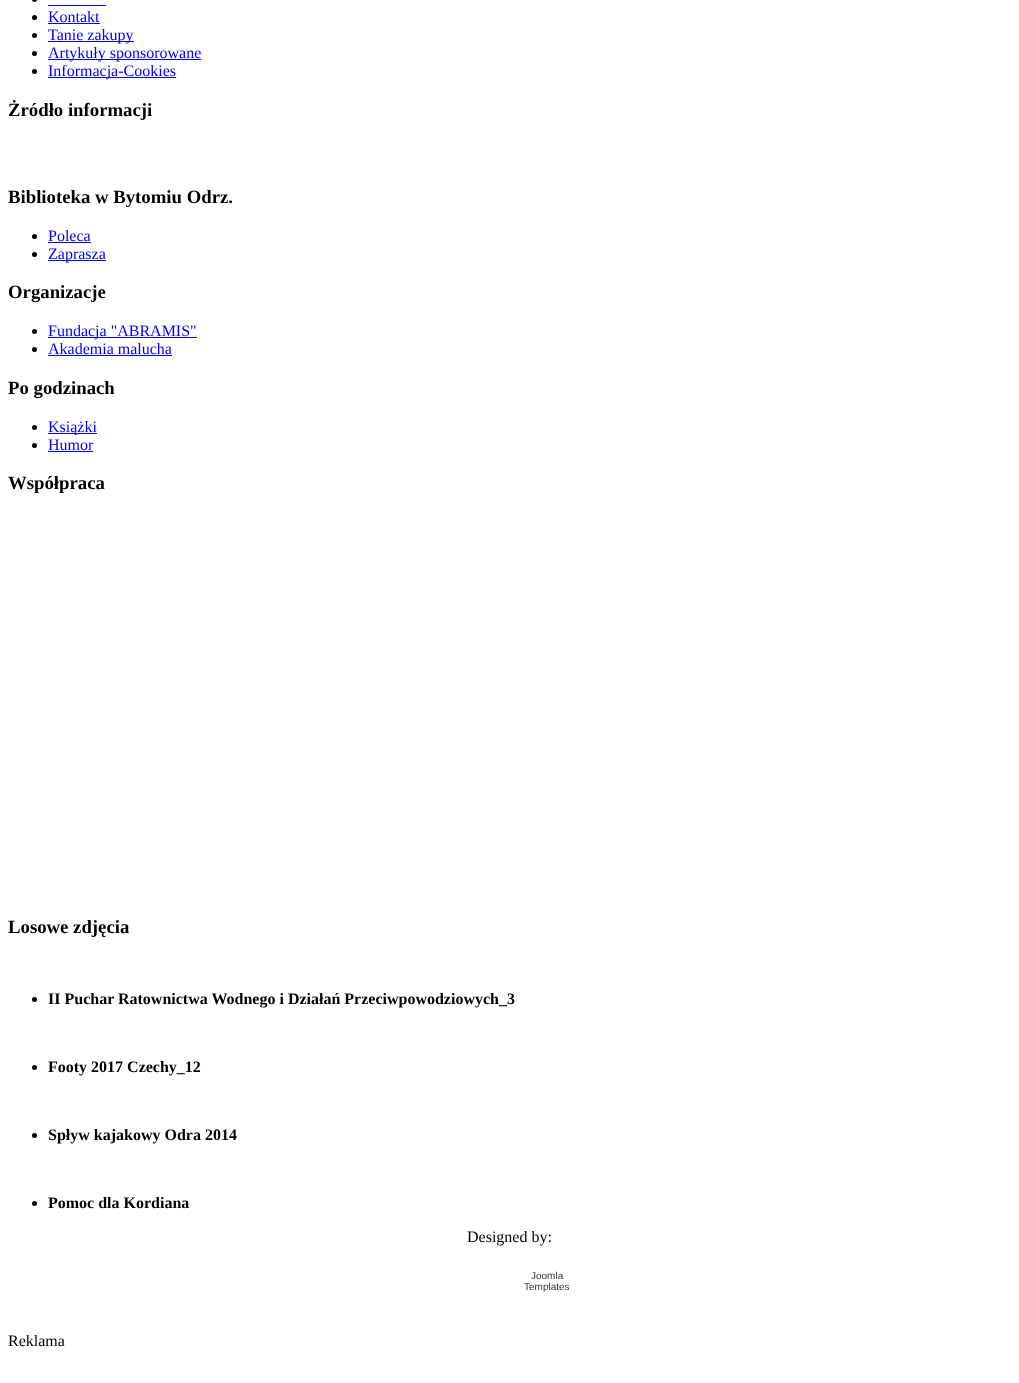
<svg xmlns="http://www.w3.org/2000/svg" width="1019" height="1383">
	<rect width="100%" height="100%" fill="#FFFFFF" />
	<circle cx="34.5" cy="-0.5" r="2.5" fill="#000000" />
	<rect x="48" y="5" width="58" height="1" fill="#0000EE" />
	<circle cx="34.5" cy="17.5" r="2.5" fill="#000000" />
	<text x="48" y="22" font-family="Liberation Serif" font-size="16" fill="#0000EE">Kontakt</text>
	<rect x="48" y="23" width="52" height="1" fill="#0000EE" />
	<circle cx="34.5" cy="35.5" r="2.5" fill="#000000" />
	<rect x="48" y="41" width="86" height="1" fill="#0000EE" />
	<text x="48" y="40" font-family="Liberation Serif" font-size="16" fill="#0000EE">Tanie zakupy</text>
	<circle cx="34.5" cy="53.5" r="2.5" fill="#000000" />
	<rect x="48" y="59" width="153" height="1" fill="#0000EE" />
	<text x="48" y="58" font-family="Liberation Serif" font-size="16" fill="#0000EE">Artykuły sponsorowane</text>
	<circle cx="34.5" cy="71.5" r="2.5" fill="#000000" />
	<rect x="48" y="77" width="128" height="1" fill="#0000EE" />
	<text x="48" y="76" font-family="Liberation Serif" font-size="16" fill="#0000EE">Informacja-Cookies</text>
	<g font-family="Liberation Serif" font-size="18.75" font-weight="700" fill="#000000">
		<text x="8" y="116">Żródło informacji</text>
		<text x="8" y="203">Biblioteka w Bytomiu Odrz.</text>
	</g>
	<circle cx="34.5" cy="236.5" r="2.5" fill="#000000" />
	<text x="48" y="241" font-family="Liberation Serif" font-size="16" fill="#0000EE">Poleca</text>
	<rect x="48" y="242" width="43" height="1" fill="#0000EE" />
	<circle cx="34.5" cy="254.5" r="2.5" fill="#000000" />
	<rect x="48" y="260" width="58" height="1" fill="#0000EE" />
	<text x="48" y="259" font-family="Liberation Serif" font-size="16" fill="#0000EE">Zaprasza</text>
	<text x="8" y="298" font-family="Liberation Serif" font-size="18.75" font-weight="700" fill="#000000">Organizacje</text>
	<circle cx="34.5" cy="331.5" r="2.5" fill="#000000" />
	<rect x="48" y="337" width="149" height="1" fill="#0000EE" />
	<text x="48" y="336" font-family="Liberation Serif" font-size="16" fill="#0000EE">Fundacja "ABRAMIS"</text>
	<circle cx="34.5" cy="349.5" r="2.5" fill="#000000" />
	<text x="48" y="354" font-family="Liberation Serif" font-size="16" fill="#0000EE">Akademia malucha</text>
	<rect x="48" y="355" width="124" height="1" fill="#0000EE" />
	<text x="8" y="394" font-family="Liberation Serif" font-size="18.75" font-weight="700" fill="#000000">Po godzinach</text>
	<circle cx="34.5" cy="427.5" r="2.5" fill="#000000" />
	<rect x="48" y="433" width="49" height="1" fill="#0000EE" />
	<text x="48" y="432" font-family="Liberation Serif" font-size="16" fill="#0000EE">Książki</text>
	<circle cx="34.5" cy="445.5" r="2.5" fill="#000000" />
	<text x="48" y="450" font-family="Liberation Serif" font-size="16" fill="#0000EE">Humor</text>
	<rect x="48" y="451" width="45" height="1" fill="#0000EE" />
	<g font-family="Liberation Serif" font-size="18.75" font-weight="700" fill="#000000">
		<text x="8" y="489">Współpraca</text>
		<text x="8" y="933">Losowe zdjęcia</text>
	</g>
	<circle cx="34.5" cy="999.5" r="2.5" fill="#000000" />
	<text x="48" y="1004" font-family="Liberation Serif" font-size="16" font-weight="700" fill="#000000">II Puchar Ratownictwa Wodnego i Działań Przeciwpowodziowych_3</text>
	<circle cx="34.5" cy="1067.5" r="2.5" fill="#000000" />
	<text x="48" y="1072" font-family="Liberation Serif" font-size="16" font-weight="700" fill="#000000">Footy 2017 Czechy_12</text>
	<circle cx="34.5" cy="1135.5" r="2.5" fill="#000000" />
	<text x="48" y="1140" font-family="Liberation Serif" font-size="16" font-weight="700" fill="#000000">Spływ kajakowy Odra 2014</text>
	<circle cx="34.5" cy="1203.5" r="2.5" fill="#000000" />
	<text x="48" y="1208" font-family="Liberation Serif" font-size="16" font-weight="700" fill="#000000">Pomoc dla Kordiana</text>
	<text x="467" y="1242" font-family="Liberation Serif" font-size="16" fill="#000000">Designed by:</text>
	<g font-family="Liberation Sans" font-size="10" fill="#333333">
		<text x="531" y="1279">Joomla</text>
		<text x="524" y="1290">Templates</text>
	</g>
	<text x="8" y="1346" font-family="Liberation Serif" font-size="16" fill="#000000">Reklama</text>
</svg>
